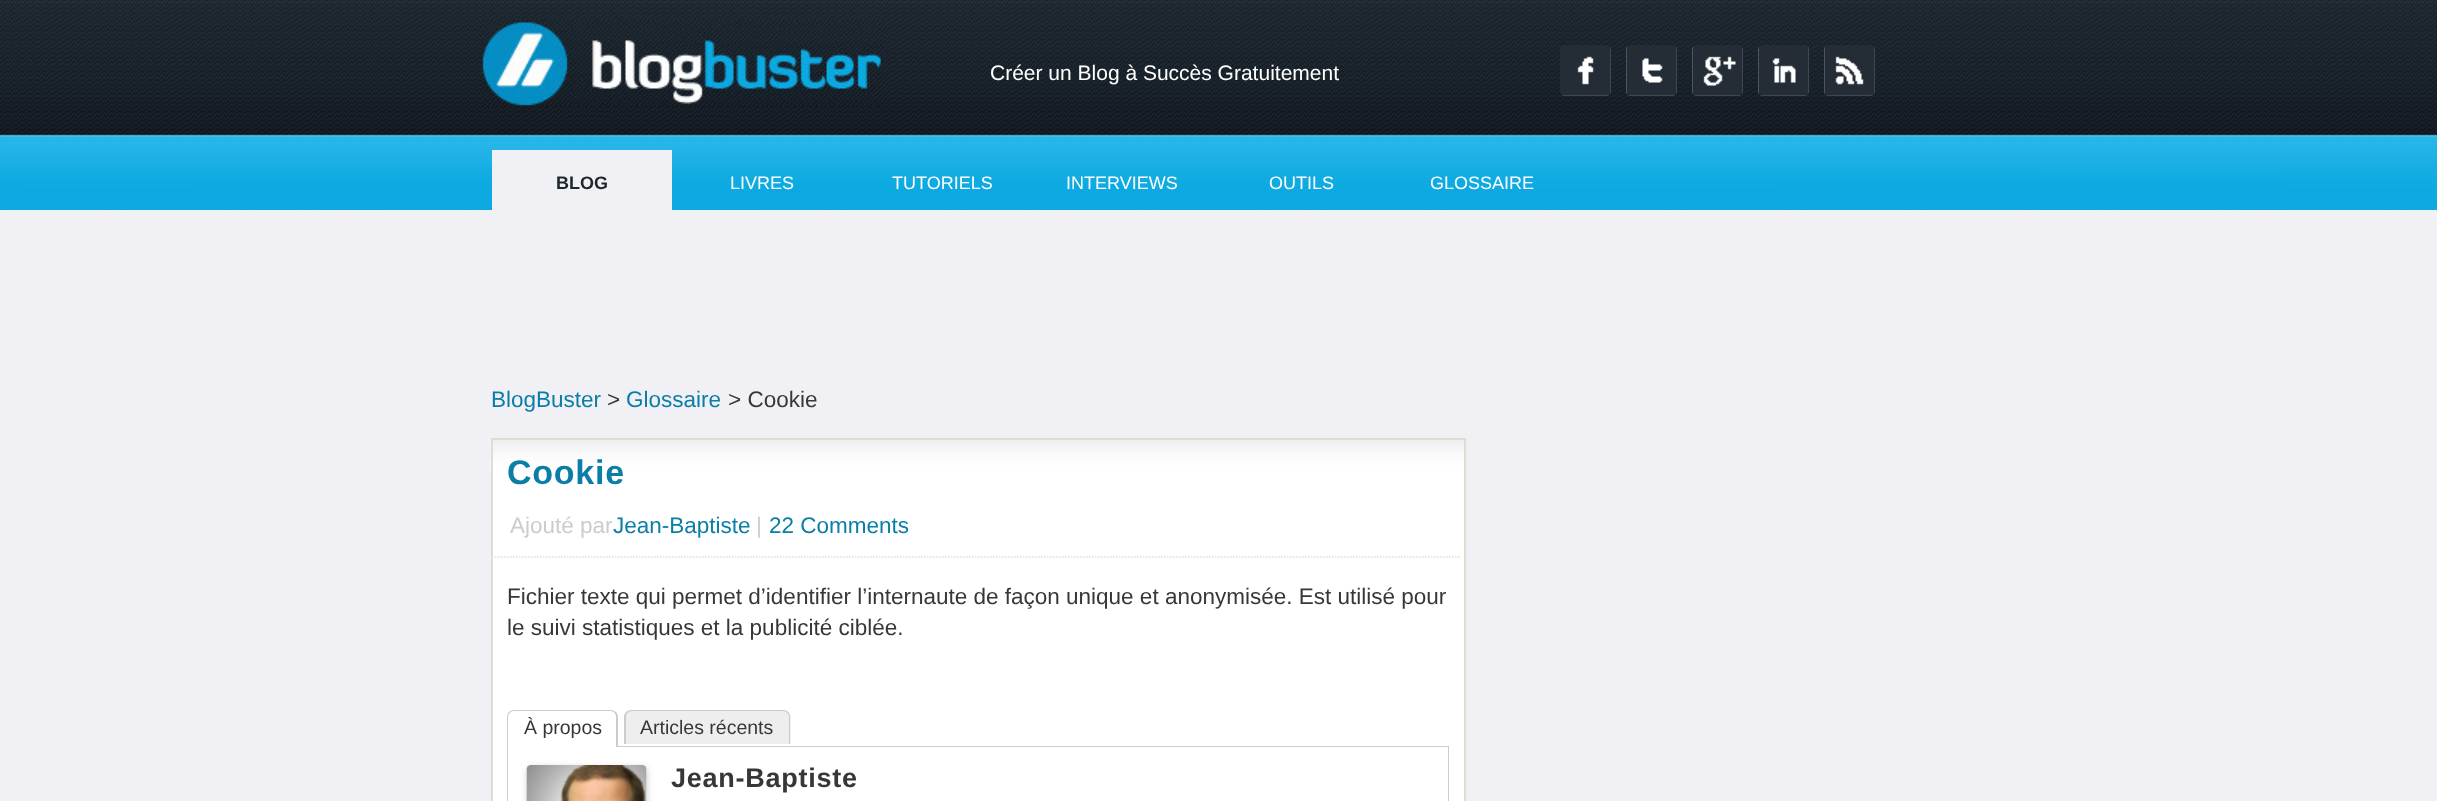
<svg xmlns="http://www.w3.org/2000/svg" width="2437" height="801">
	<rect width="100%" height="100%" fill="#F1F0F5" />
	<image x="0" y="0" width="2437" height="210" href="assets/img1.png" />
	<image x="480" y="19" width="405" height="88" href="assets/img2.png" />
	<text x="990" y="80" font-family="Liberation Sans" font-size="21" fill="#FFFFFF">Créer un Blog à Succès Gratuitement</text>
	<image x="1560" y="45" width="51" height="51" href="assets/img3.png" />
	<image x="1625" y="45" width="52" height="51" href="assets/img4.png" />
	<image x="1691" y="45" width="52" height="51" href="assets/img5.png" />
	<image x="1757" y="45" width="52" height="51" href="assets/img6.png" />
	<image x="1823" y="45" width="52" height="51" href="assets/img7.png" />
	<rect x="492" y="150" width="180" height="60" fill="#F1F0F5" />
	<text x="556" y="189" font-family="Liberation Sans" font-size="18" font-weight="700" fill="#1B272C">BLOG</text>
	<g font-family="Liberation Sans" font-size="18" fill="#FFFFFF">
		<text x="730" y="189">LIVRES</text>
		<text x="892" y="189">TUTORIELS</text>
		<text x="1066" y="189">INTERVIEWS</text>
		<text x="1269" y="189">OUTILS</text>
		<text x="1430" y="189">GLOSSAIRE</text>
	</g>
	<text x="491" y="407" font-family="Liberation Sans" font-size="22.5" fill="#0A7EA7">BlogBuster</text>
	<text x="607" y="407" font-family="Liberation Sans" font-size="22.5" fill="#373737">&gt;</text>
	<text x="626" y="407" font-family="Liberation Sans" font-size="22.5" fill="#0A7EA7">Glossaire</text>
	<text x="728" y="407" font-family="Liberation Sans" font-size="22.5" fill="#373737">&gt; Cookie</text>
	<rect x="493" y="466" width="971" height="335" fill="#FFFFFF" />
	<image x="490" y="439" width="974" height="27" href="assets/img8.png" />
	<rect x="492" y="439" width="973" height="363" fill="none" stroke="#DEDCD4" stroke-width="2" />
	<text x="507" y="484" font-family="Liberation Sans" font-size="34" font-weight="700" letter-spacing="0.75" fill="#0A7EA7">Cookie</text>
	<path d="M495 557H1461" fill="none" stroke="#DEDCD4" stroke-width="1.5" stroke-dasharray="1.5 1.5" />
	<text x="510" y="533" font-family="Liberation Sans" font-size="22.5" fill="#CCCCCC">Ajouté par</text>
	<text x="613" y="533" font-family="Liberation Sans" font-size="22.5" fill="#0A7EA7">Jean-Baptiste</text>
	<text x="756" y="533" font-family="Liberation Sans" font-size="22.5" fill="#CCCCCC">|</text>
	<text x="769" y="533" font-family="Liberation Sans" font-size="22.5" fill="#0A7EA7">22 Comments</text>
	<g font-family="Liberation Sans" font-size="22.5" fill="#373737">
		<text x="507" y="604">Fichier texte qui permet d’identifier l’internaute de façon unique et anonymisée. Est utilisé pour</text>
		<text x="507" y="635">le suivi statistiques et la publicité ciblée.</text>
	</g>
	<rect x="618" y="746" width="831" height="1" fill="#CCCCCC" />
	<path d="M514 710H610C615 710 618 713 618 717V747H507V717C507 713 510 710 514 710ZM514 711H610C614 711 616 714 616 717V747H508V717C508 714 511 711 514 711Z" fill="#CCCCCC" fill-rule="evenodd" />
	<text x="524" y="734" font-family="Liberation Sans" font-size="19.5" fill="#373737">À propos</text>
	<path d="M632 710H783C787.5 710 791 713.5 791 718V744H624V718C624 713.5 627.5 710 632 710Z" fill="#EEEEEE" />
	<path d="M632 710H783C787 710 790 713 790 717V744H624V717C624 713 627 710 632 710ZM632 711H783C786 711 789 714 789 717V744H626V717C626 714 628 711 632 711Z" fill="#CCCCCC" fill-rule="evenodd" />
	<text x="640" y="734" font-family="Liberation Sans" font-size="19.5" fill="#373737">Articles récents</text>
	<path d="M507 747H1449V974C1449 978 1446 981 1442 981H514C510 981 507 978 507 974ZM508 747H1448V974C1448 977 1445 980 1442 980H514C511 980 508 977 508 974Z" fill="#CCCCCC" fill-rule="evenodd" />
	<rect x="527" y="767" width="120" height="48" rx="5" fill="#000000" fill-opacity="0.2" filter="blur(3px)" />
	<image x="526" y="765" width="121" height="36" href="assets/img9.png" />
	<text x="671" y="787" font-family="Liberation Sans" font-size="27" font-weight="700" letter-spacing="0.75" fill="#373737">Jean-Baptiste</text>
</svg>
